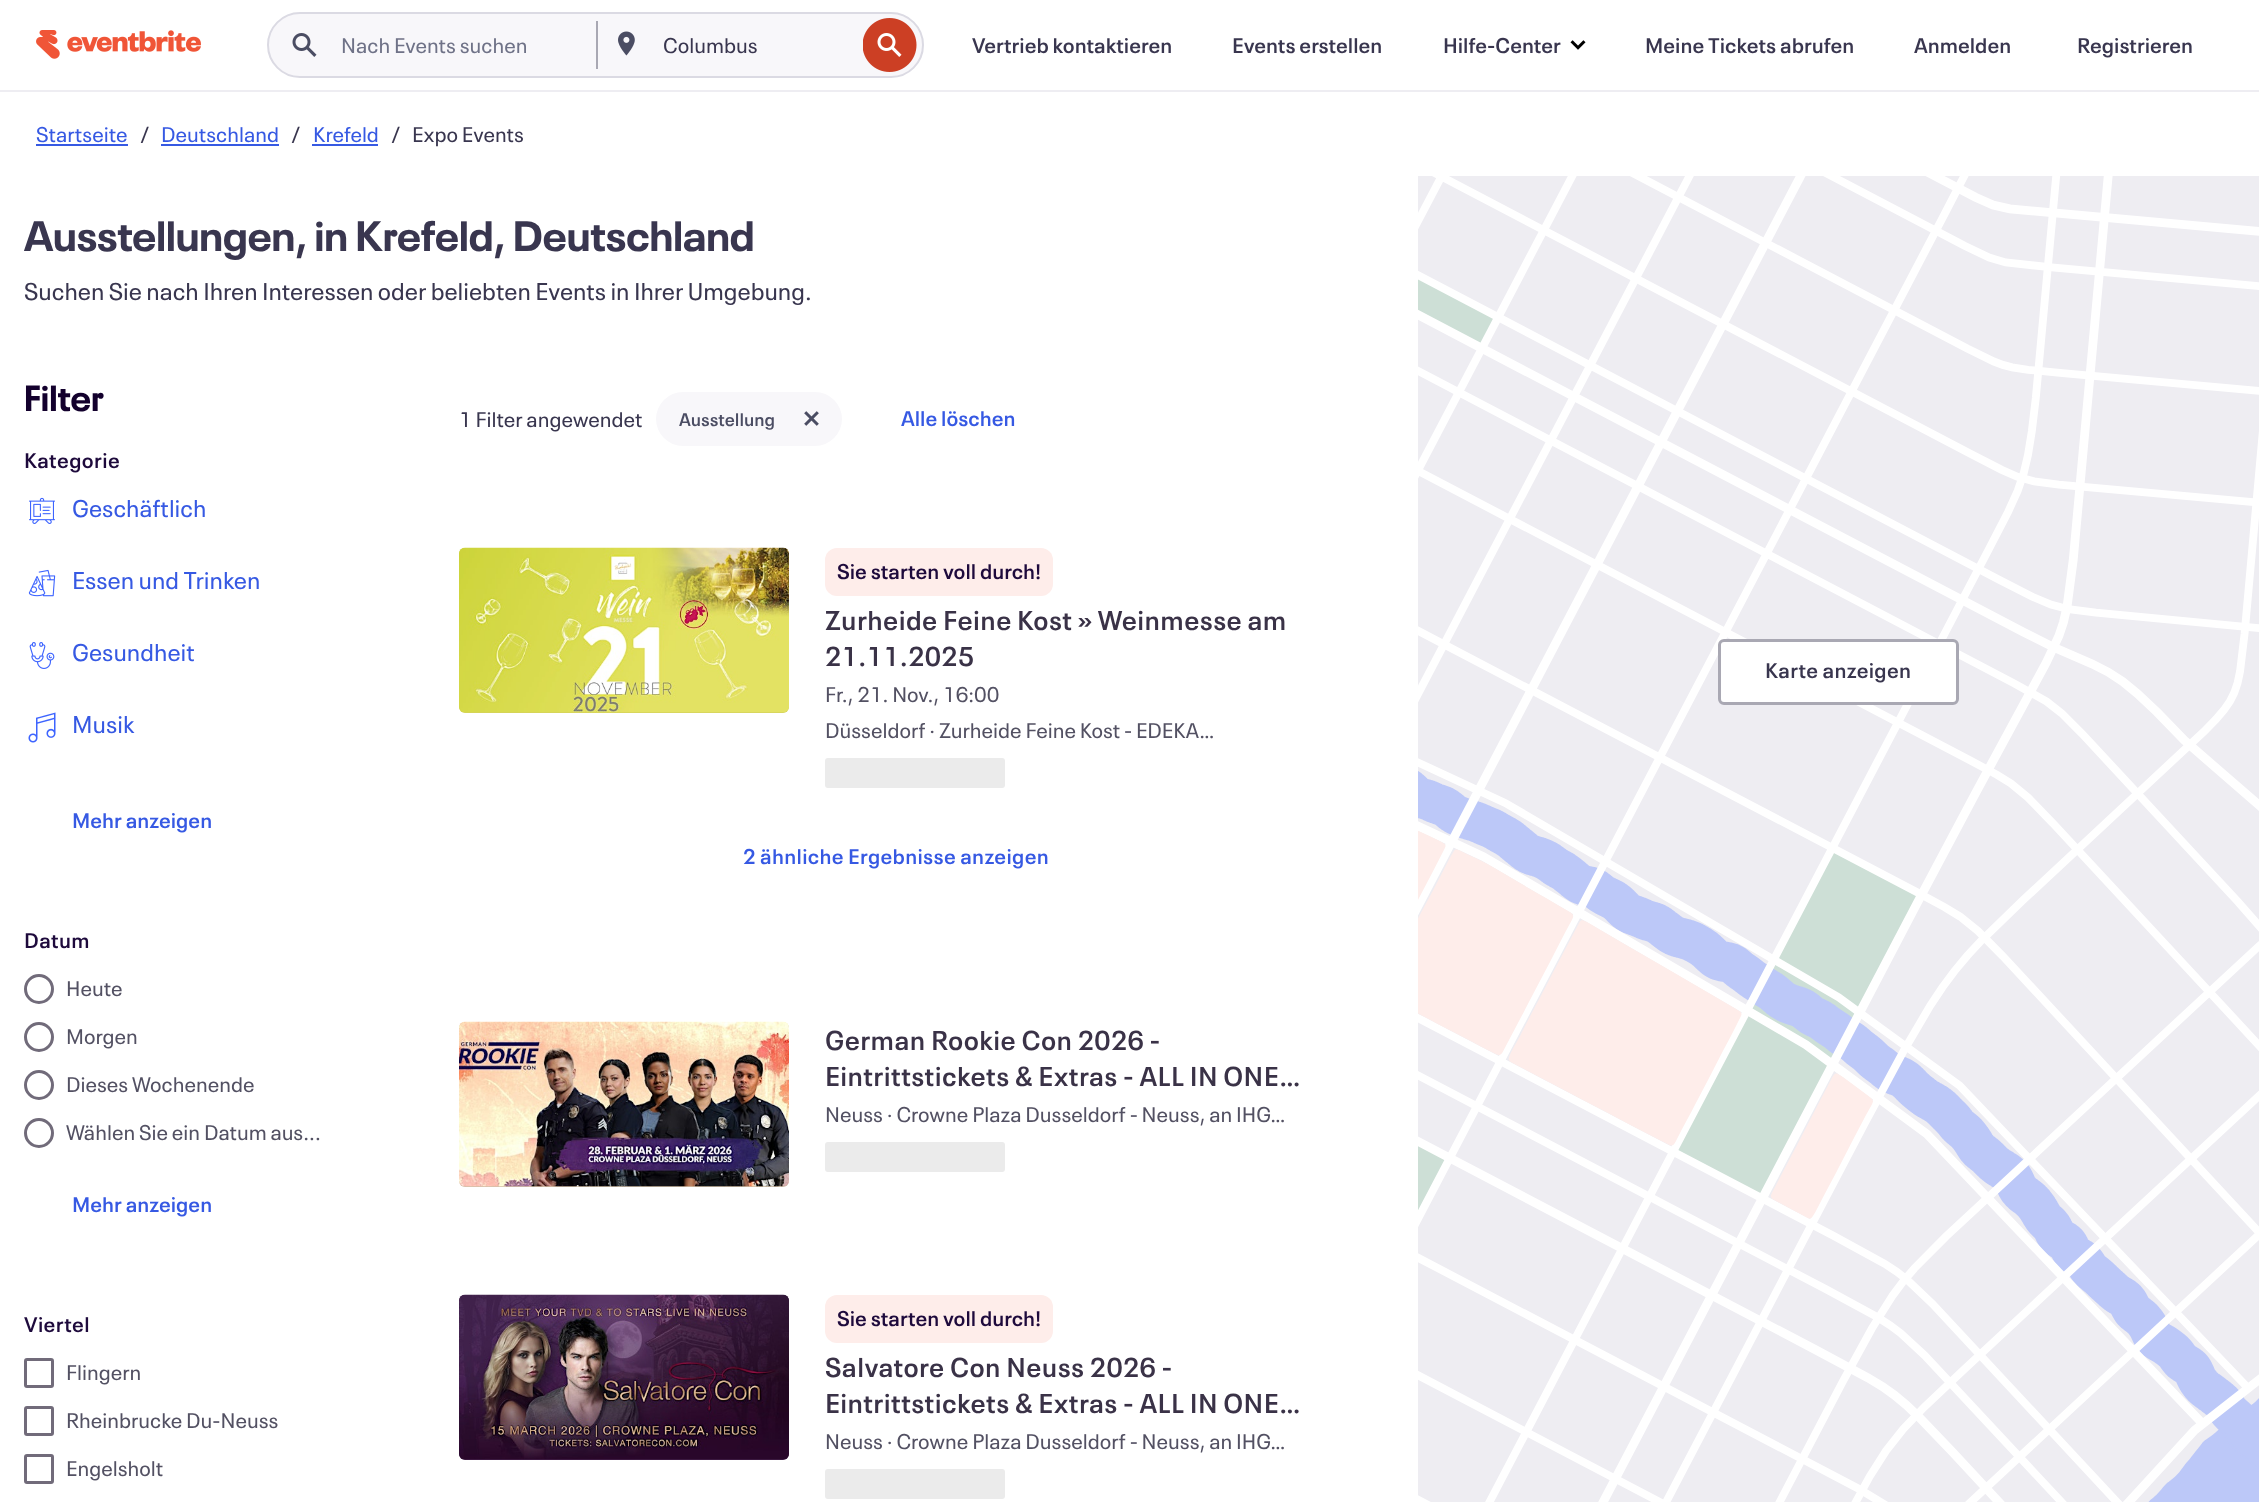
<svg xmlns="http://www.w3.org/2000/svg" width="2259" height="1502">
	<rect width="100%" height="100%" fill="#FFFFFF" />
	<rect x="0" y="90" width="2259" height="2" fill="#EEEDF2" />
	<image x="36" y="30" width="165" height="29" href="assets/img1.png" />
	<rect x="268" y="13" width="655" height="64" rx="32" fill="#F8F7FA" stroke="#DBDAE3" stroke-width="2" />
	<image x="292" y="33" width="25" height="24" href="assets/img2.png" />
	<text x="341" y="53" font-family="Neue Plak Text" font-size="21" fill="#6F7287">Nach Events suchen</text>
	<rect x="596" y="21" width="2" height="48" fill="#A9A8B3" />
	<image x="618" y="31" width="17" height="25" href="assets/img3.png" />
	<text x="663" y="53" font-family="Neue Plak Text" font-size="21" fill="#39364F">Columbus</text>
	<image x="863" y="18" width="54" height="54" href="assets/img4.png" />
	<g font-family="Neue Plak Text" font-size="21" font-weight="600" fill="#39364F">
		<text x="972" y="53">Vertrieb kontaktieren</text>
		<text x="1232" y="53">Events erstellen</text>
		<text x="1443" y="53">Hilfe-Center</text>
	</g>
	<image x="1570" y="40" width="16" height="10" href="assets/img5.png" />
	<g font-family="Neue Plak Text" font-size="21" font-weight="600" fill="#39364F">
		<text x="1645" y="53">Meine Tickets abrufen</text>
		<text x="1914" y="53">Anmelden</text>
		<text x="2077" y="53">Registrieren</text>
	</g>
	<text x="36" y="142" font-family="Neue Plak Text" font-size="21" fill="#3659E3">Startseite</text>
	<rect x="36" y="144" width="92" height="2" fill="#3659E3" />
	<text x="140" y="142" font-family="Neue Plak Text" font-size="21" fill="#39364F">/</text>
	<text x="161" y="142" font-family="Neue Plak Text" font-size="21" fill="#3659E3">Deutschland</text>
	<rect x="161" y="144" width="118" height="2" fill="#3659E3" />
	<text x="291" y="142" font-family="Neue Plak Text" font-size="21" fill="#39364F">/</text>
	<text x="313" y="142" font-family="Neue Plak Text" font-size="21" fill="#3659E3">Krefeld</text>
	<rect x="312" y="144" width="66" height="2" fill="#3659E3" />
	<g font-family="Neue Plak Text" font-size="21" fill="#39364F">
		<text x="391" y="142">/</text>
		<text x="412" y="142">Expo Events</text>
	</g>
	<text x="24" y="251" font-family="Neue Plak" font-size="42" font-weight="700" fill="#39364F">Ausstellungen, in Krefeld, Deutschland</text>
	<text x="24" y="300" font-family="Neue Plak Text" font-size="24" fill="#39364F">Suchen Sie nach Ihren Interessen oder beliebten Events in Ihrer Umgebung.</text>
	<text x="24" y="411" font-family="Neue Plak" font-size="36" font-weight="700" fill="#13002D">Filter</text>
	<text x="24" y="468" font-family="Neue Plak Text" font-size="21" font-weight="600" letter-spacing="0.4" fill="#1E0A3C">Kategorie</text>
	<image x="29" y="497" width="26" height="27" href="assets/img6.png" />
	<text x="72" y="517" font-family="Neue Plak Text" font-size="24" fill="#3659E3">Geschäftlich</text>
	<image x="28" y="569" width="28" height="28" href="assets/img7.png" />
	<text x="72" y="589" font-family="Neue Plak Text" font-size="24" fill="#3659E3">Essen und Trinken</text>
	<image x="29" y="642" width="26" height="27" href="assets/img8.png" />
	<text x="72" y="661" font-family="Neue Plak Text" font-size="24" fill="#3659E3">Gesundheit</text>
	<image x="28" y="712" width="28" height="31" href="assets/img9.png" />
	<text x="72" y="733" font-family="Neue Plak Text" font-size="24" fill="#3659E3">Musik</text>
	<text x="72" y="828" font-family="Neue Plak Text" font-size="21" font-weight="600" fill="#3659E3">Mehr anzeigen</text>
	<text x="24" y="948" font-family="Neue Plak Text" font-size="21" font-weight="600" letter-spacing="0.4" fill="#1E0A3C">Datum</text>
	<circle cx="39" cy="989" r="13.5" fill="none" stroke="#716B7A" stroke-width="3" />
	<text x="66" y="996" font-family="Neue Plak Text" font-size="21" fill="#535163">Heute</text>
	<circle cx="39" cy="1037" r="13.5" fill="none" stroke="#716B7A" stroke-width="3" />
	<text x="66" y="1044" font-family="Neue Plak Text" font-size="21" fill="#535163">Morgen</text>
	<circle cx="39" cy="1085" r="13.5" fill="none" stroke="#716B7A" stroke-width="3" />
	<text x="66" y="1092" font-family="Neue Plak Text" font-size="21" fill="#535163">Dieses Wochenende</text>
	<circle cx="39" cy="1133" r="13.5" fill="none" stroke="#716B7A" stroke-width="3" />
	<text x="66" y="1140" font-family="Neue Plak Text" font-size="21" fill="#535163">Wählen Sie ein Datum aus...</text>
	<text x="72" y="1212" font-family="Neue Plak Text" font-size="21" font-weight="600" fill="#3659E3">Mehr anzeigen</text>
	<text x="24" y="1332" font-family="Neue Plak Text" font-size="21" font-weight="600" letter-spacing="0.4" fill="#1E0A3C">Viertel</text>
	<rect x="25.5" y="1359.5" width="27" height="27" rx="1.5" fill="none" stroke="#716B7A" stroke-width="3" />
	<text x="66" y="1380" font-family="Neue Plak Text" font-size="21" fill="#535163">Flingern</text>
	<rect x="25.5" y="1407.5" width="27" height="27" rx="1.5" fill="none" stroke="#716B7A" stroke-width="3" />
	<text x="66" y="1428" font-family="Neue Plak Text" font-size="21" fill="#535163">Rheinbrucke Du-Neuss</text>
	<rect x="25.5" y="1455.5" width="27" height="27" rx="1.5" fill="none" stroke="#716B7A" stroke-width="3" />
	<text x="66" y="1476" font-family="Neue Plak Text" font-size="21" fill="#535163">Engelsholt</text>
	<text x="459" y="427" font-family="Neue Plak Text" font-size="21" fill="#39364F">1 Filter angewendet</text>
	<rect x="656" y="392" width="186" height="54" rx="27" fill="#F8F7FA" />
	<text x="679" y="426" font-family="Neue Plak Text" font-size="18" font-weight="600" fill="#4B4D63">Ausstellung</text>
	<image x="804" y="411" width="15" height="15" href="assets/img10.png" />
	<text x="901" y="426" font-family="Neue Plak Text" font-size="21" font-weight="600" fill="#3659E3">Alle löschen</text>
	<rect x="459" y="548" width="330" height="165" rx="6" fill="#D4D25B" />
	<image x="459" y="547" width="330" height="166" href="assets/img11.png" />
	<rect x="825" y="548" width="228" height="48" rx="12" fill="#FEEDEA" />
	<text x="837" y="579" font-family="Neue Plak Text" font-size="21" font-weight="600" fill="#1E0A3C">Sie starten voll durch!</text>
	<g font-family="Neue Plak Text" font-size="27" font-weight="600" letter-spacing="0.4" fill="#3A3247">
		<text x="825" y="630">Zurheide Feine Kost » Weinmesse am</text>
		<text x="825" y="666">21.11.2025</text>
	</g>
	<g font-family="Neue Plak Text" font-size="21" fill="#535163">
		<text x="825" y="702">Fr., 21. Nov., 16:00</text>
		<text x="825" y="738">Düsseldorf · Zurheide Feine Kost - EDEKA…</text>
	</g>
	<rect x="825" y="758" width="180" height="30" rx="3" fill="#EBEBEB" />
	<text x="743" y="864" font-family="Neue Plak Text" font-size="21" font-weight="600" letter-spacing="0.3" fill="#3659E3">2 ähnliche Ergebnisse anzeigen</text>
	<rect x="459" y="1022" width="330" height="165" rx="6" fill="#D2BFA7" />
	<image x="459" y="1021" width="330" height="166" href="assets/img12.png" />
	<g font-family="Neue Plak Text" font-size="27" font-weight="600" letter-spacing="0.4" fill="#3A3247">
		<text x="825" y="1050">German Rookie Con 2026 -</text>
		<text x="825" y="1086">Eintrittstickets &amp; Extras - ALL IN ONE…</text>
	</g>
	<text x="825" y="1122" font-family="Neue Plak Text" font-size="21" fill="#535163">Neuss · Crowne Plaza Dusseldorf - Neuss, an IHG…</text>
	<rect x="825" y="1142" width="180" height="30" rx="3" fill="#EBEBEB" />
	<rect x="459" y="1295" width="330" height="165" rx="6" fill="#401F47" />
	<image x="459" y="1294" width="330" height="166" href="assets/img13.png" />
	<rect x="825" y="1295" width="228" height="48" rx="12" fill="#FEEDEA" />
	<text x="837" y="1326" font-family="Neue Plak Text" font-size="21" font-weight="600" fill="#1E0A3C">Sie starten voll durch!</text>
	<g font-family="Neue Plak Text" font-size="27" font-weight="600" letter-spacing="0.4" fill="#3A3247">
		<text x="825" y="1377">Salvatore Con Neuss 2026 -</text>
		<text x="825" y="1413">Eintrittstickets &amp; Extras - ALL IN ONE…</text>
	</g>
	<text x="825" y="1449" font-family="Neue Plak Text" font-size="21" fill="#535163">Neuss · Crowne Plaza Dusseldorf - Neuss, an IHG…</text>
	<rect x="825" y="1469" width="180" height="30" rx="3" fill="#EBEBEB" />
	<image x="1418" y="176" width="841" height="1326" href="assets/img14.png" />
	<rect x="1719.5" y="640.5" width="238" height="63" rx="4.5" fill="#FFFFFF" stroke="#A9A8B3" stroke-width="3" />
	<text x="1765" y="678" font-family="Neue Plak Text" font-size="21" font-weight="600" letter-spacing="0.3" fill="#39364F">Karte anzeigen</text>
</svg>
